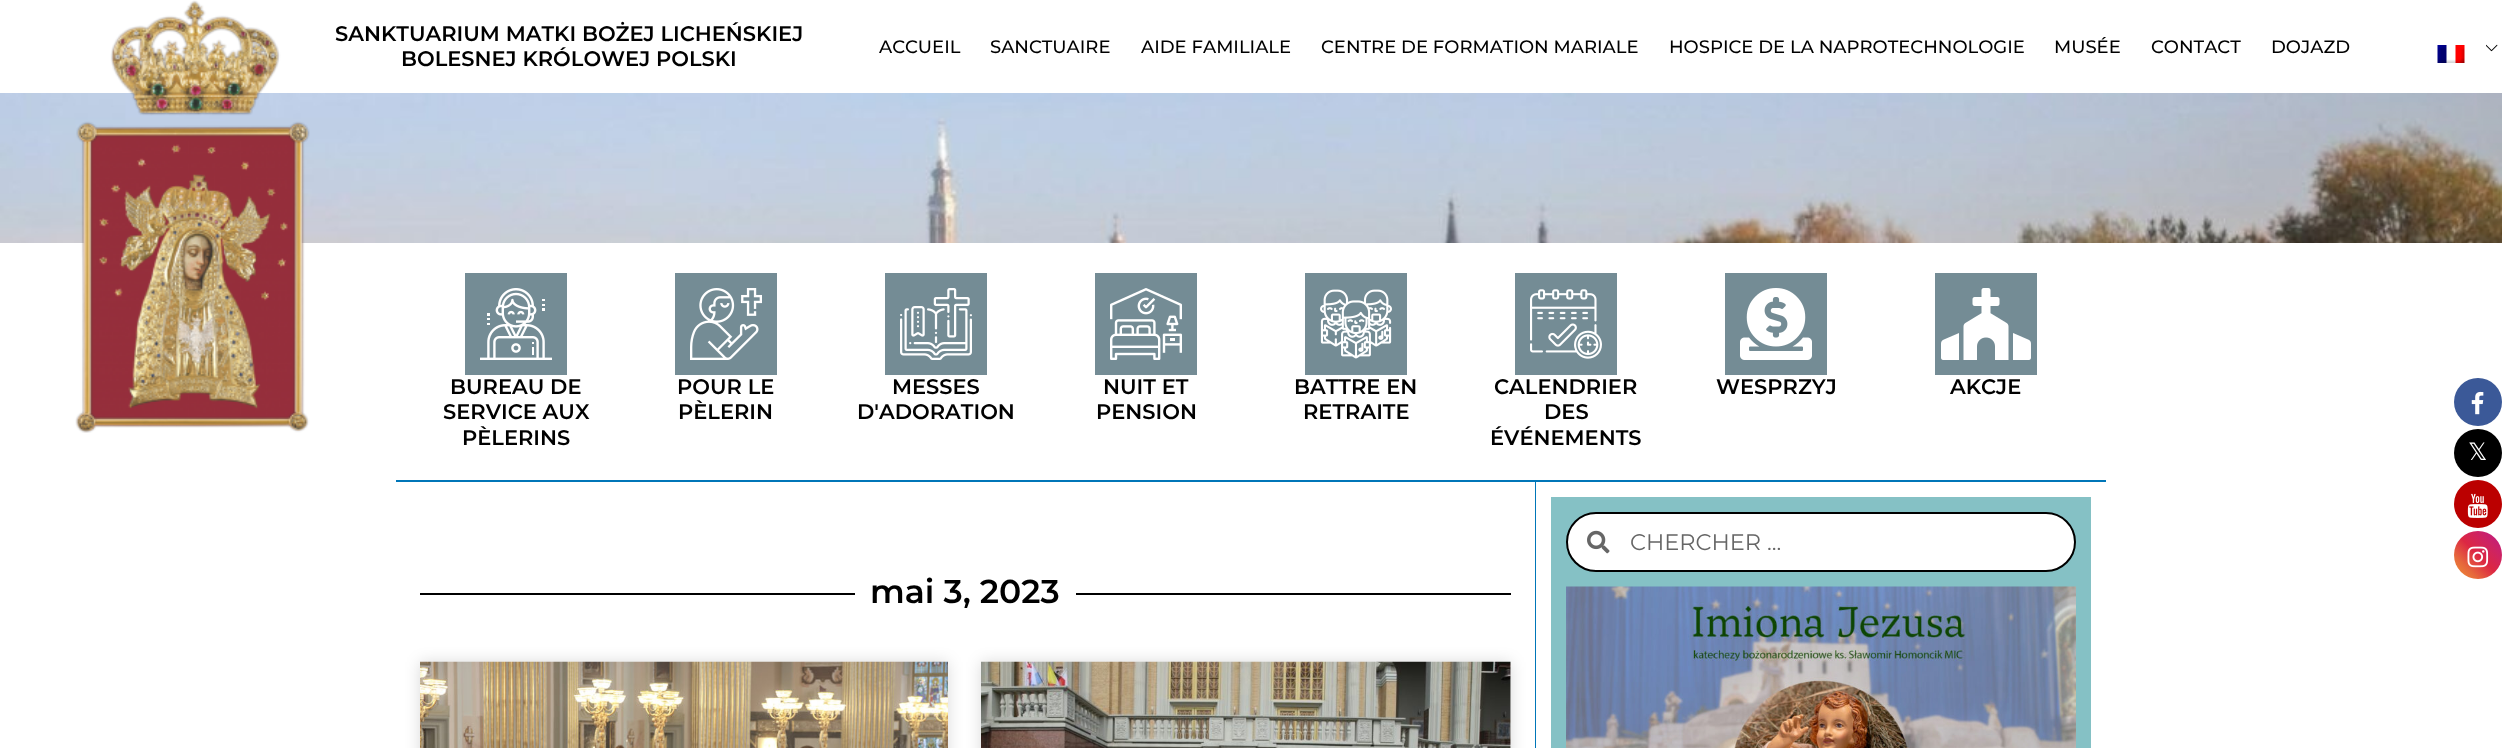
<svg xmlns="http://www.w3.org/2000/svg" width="2502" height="748">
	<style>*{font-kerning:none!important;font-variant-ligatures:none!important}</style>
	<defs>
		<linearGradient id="g1" gradientUnits="userSpaceOnUse" x1="2454" y1="579" x2="2502" y2="531"><stop offset="0" stop-color="#F09433" /><stop offset="0.25" stop-color="#E6683C" /><stop offset="0.5" stop-color="#DC2743" /><stop offset="0.75" stop-color="#CC2366" /><stop offset="1" stop-color="#BC1888" /></linearGradient>
	</defs>
	<rect width="100%" height="100%" fill="#FFFFFF" />
	<image x="0" y="93" width="2502" height="150" href="assets/img4.png" />
	<image x="75" y="0" width="235" height="433" href="assets/img1.png" />
	<g font-family="Montserrat" font-size="21" font-weight="600" fill="#000000">
		<text x="335" y="41">SANKTUARIUM MATKI BOŻEJ LICHEŃSKIEJ</text>
		<text x="401" y="66">BOLESNEJ KRÓLOWEJ POLSKI</text>
	</g>
	<g font-family="Montserrat" font-size="18" font-weight="500" fill="#000000">
		<text x="879" y="53">ACCUEIL</text>
		<text x="990" y="53">SANCTUAIRE</text>
		<text x="1141" y="53">AIDE FAMILIALE</text>
		<text x="1321" y="53">CENTRE DE FORMATION MARIALE</text>
		<text x="1669" y="53">HOSPICE DE LA NAPROTECHNOLOGIE</text>
		<text x="2054" y="53">MUSÉE</text>
		<text x="2151" y="53">CONTACT</text>
		<text x="2271" y="53">DOJAZD</text>
	</g>
	<image x="2486" y="44" width="12" height="8" href="assets/img2.png" />
	<image x="2437" y="45" width="28" height="18" href="assets/img3.png" />
	<rect x="465" y="273" width="102" height="102" fill="#748C95" />
	<image x="480" y="288" width="72" height="72" href="assets/img5.png" />
	<g font-family="Montserrat" font-size="21" font-weight="600" fill="#000000">
		<text x="450" y="394">BUREAU DE</text>
		<text x="443" y="419">SERVICE AUX</text>
		<text x="462" y="445">PÈLERINS</text>
	</g>
	<rect x="675" y="273" width="102" height="102" fill="#748C95" />
	<image x="690" y="288" width="72" height="72" href="assets/img6.png" />
	<g font-family="Montserrat" font-size="21" font-weight="600" fill="#000000">
		<text x="677" y="394">POUR LE</text>
		<text x="678" y="419">PÈLERIN</text>
	</g>
	<rect x="885" y="273" width="102" height="102" fill="#748C95" />
	<image x="900" y="288" width="72" height="72" href="assets/img7.png" />
	<g font-family="Montserrat" font-size="21" font-weight="600" fill="#000000">
		<text x="892" y="394">MESSES</text>
		<text x="857" y="419">D'ADORATION</text>
	</g>
	<rect x="1095" y="273" width="102" height="102" fill="#748C95" />
	<image x="1110" y="288" width="72" height="72" href="assets/img8.png" />
	<g font-family="Montserrat" font-size="21" font-weight="600" fill="#000000">
		<text x="1103" y="394">NUIT ET</text>
		<text x="1096" y="419">PENSION</text>
	</g>
	<rect x="1305" y="273" width="102" height="102" fill="#748C95" />
	<image x="1320" y="289" width="72" height="70" href="assets/img9.png" />
	<g font-family="Montserrat" font-size="21" font-weight="600" fill="#000000">
		<text x="1294" y="394">BATTRE EN</text>
		<text x="1303" y="419">RETRAITE</text>
	</g>
	<rect x="1515" y="273" width="102" height="102" fill="#748C95" />
	<image x="1530" y="289" width="72" height="70" href="assets/img10.png" />
	<g font-family="Montserrat" font-size="21" font-weight="600" fill="#000000">
		<text x="1494" y="394">CALENDRIER</text>
		<text x="1544" y="419">DES</text>
		<text x="1490" y="445">ÉVÉNEMENTS</text>
	</g>
	<rect x="1725" y="273" width="102" height="102" fill="#748C95" />
	<image x="1740" y="288" width="72" height="72" href="assets/img11.png" />
	<text x="1716" y="394" font-family="Montserrat" font-size="21" font-weight="600" fill="#000000">WESPRZYJ</text>
	<rect x="1935" y="273" width="102" height="102" fill="#748C95" />
	<image x="1941" y="288" width="90" height="72" href="assets/img12.png" />
	<text x="1950" y="394" font-family="Montserrat" font-size="21" font-weight="600" fill="#000000">AKCJE</text>
	<rect x="1551" y="497" width="540" height="251" fill="#85C1C5" />
	<rect x="1567" y="513" width="508" height="58" rx="29" fill="#FFFFFF" stroke="#000000" stroke-width="2" />
	<image x="1587" y="530" width="23" height="24" href="assets/img13.png" />
	<text x="1630" y="550" font-family="Montserrat" font-size="22.5" fill="#666666">CHERCHER ...</text>
	<image x="1566" y="586" width="510" height="162" href="assets/img14.png" />
	<rect x="396" y="480" width="1710" height="2" fill="#0076B8" />
	<rect x="1535" y="480" width="1" height="268" fill="#0076B8" />
	<rect x="420" y="593" width="435" height="2" fill="#000000" />
	<text x="870" y="603" font-family="Montserrat" font-size="33" font-weight="600" fill="#000000">mai 3, 2023</text>
	<rect x="1076" y="593" width="435" height="2" fill="#000000" />
	<rect x="420" y="662" width="528" height="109" fill="#000000" fill-opacity="0.15" filter="blur(7.5px)" />
	<image x="420" y="661" width="528" height="87" href="assets/img15.png" />
	<rect x="981" y="662" width="530" height="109" fill="#000000" fill-opacity="0.15" filter="blur(7.5px)" />
	<rect x="1510" y="662" width="1" height="86" fill="#FFFFFF" />
	<image x="981" y="661" width="530" height="87" href="assets/img16.png" />
	<circle cx="2478" cy="402" r="24" fill="#3B5998" />
	<image x="2471" y="391" width="13" height="24" href="assets/img17.png" />
	<circle cx="2478" cy="453" r="24" fill="#000000" />
	<text x="2468" y="460" font-family="DejaVu Sans" font-size="24" fill="#FFFFFF">𝕏</text>
	<circle cx="2478" cy="504" r="24" fill="#BB0000" />
	<image x="2467" y="493" width="21" height="25" href="assets/img18.png" />
	<circle cx="2478" cy="555" r="24" fill="url(#g1)" />
	<image x="2467" y="546" width="22" height="22" href="assets/img19.png" />
</svg>
